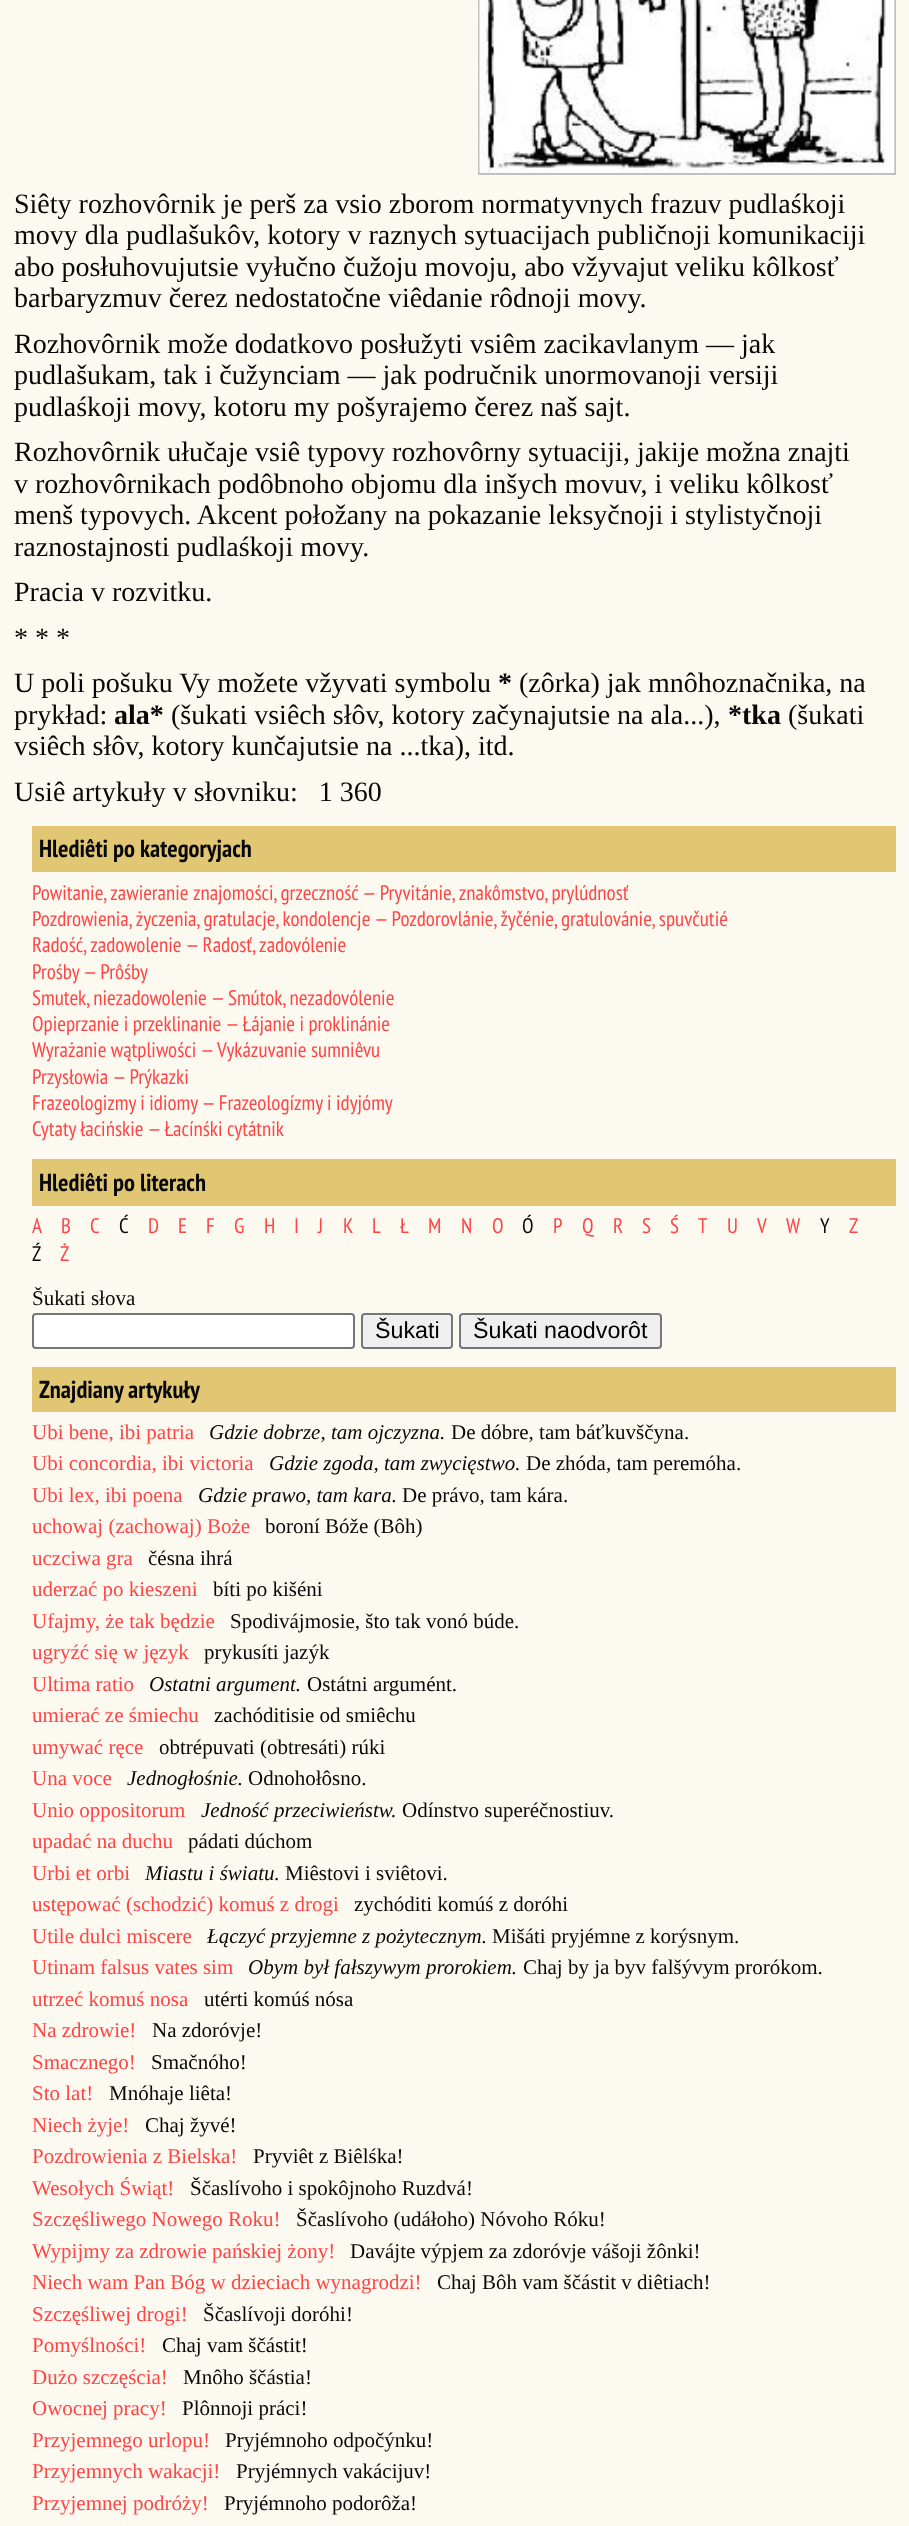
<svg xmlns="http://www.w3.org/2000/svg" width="909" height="2526">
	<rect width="100%" height="100%" fill="#FCF9F0" />
	<rect x="479" y="-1" width="416" height="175" fill="none" stroke="#C0C0C0" stroke-width="2" />
	<image x="479" y="0" width="416" height="173" href="assets/img1.png" />
	<g font-family="Liberation Serif" font-size="28" fill="#080808">
		<text x="14" y="213">Siêty rozhovôrnik je perš za vsio zborom normatyvnych frazuv pudlaśkoji</text>
		<text x="14" y="244">movy dla pudlašukôv, kotory v raznych sytuacijach publičnoji komunikaciji</text>
		<text x="14" y="276">abo posłuhovujutsie vyłučno čužoju movoju, abo vžyvajut veliku kôlkosť</text>
		<text x="14" y="307">barbaryzmuv čerez nedostatočne viêdanie rôdnoji movy.</text>
		<text x="14" y="353">Rozhovôrnik može dodatkovo posłužyti vsiêm zacikavlanym — jak</text>
		<text x="14" y="384">pudlašukam, tak i čužynciam — jak područnik unormovanoji versiji</text>
		<text x="14" y="416">pudlaśkoji movy, kotoru my pošyrajemo čerez naš sajt.</text>
		<text x="14" y="461">Rozhovôrnik ułučaje vsiê typovy rozhovôrny sytuaciji, jakije možna znajti</text>
		<text x="14" y="493">v rozhovôrnikach podôbnoho objomu dla inšych movuv, i veliku kôlkosť</text>
		<text x="14" y="524">menš typovych. Akcent połožany na pokazanie leksyčnoji i stylistyčnoji</text>
		<text x="14" y="556">raznostajnosti pudlaśkoji movy.</text>
		<text x="14" y="601">Pracia v rozvitku.</text>
		<text x="14" y="647">* * *</text>
		<text x="14" y="692">U poli pošuku Vy možete vžyvati symbolu</text>
	</g>
	<text x="498" y="692" font-family="Liberation Serif" font-size="28" font-weight="700" fill="#080808">*</text>
	<g font-family="Liberation Serif" font-size="28" fill="#080808">
		<text x="519" y="692">(zôrka) jak mnôhoznačnika, na</text>
		<text x="14" y="724">prykład:</text>
	</g>
	<text x="114" y="724" font-family="Liberation Serif" font-size="28" font-weight="700" fill="#080808">ala*</text>
	<text x="171" y="724" font-family="Liberation Serif" font-size="28" fill="#080808">(šukati vsiêch słôv, kotory začynajutsie na ala...),</text>
	<text x="728" y="724" font-family="Liberation Serif" font-size="28" font-weight="700" fill="#080808">*tka</text>
	<g font-family="Liberation Serif" font-size="28" fill="#080808">
		<text x="788" y="724">(šukati</text>
		<text x="14" y="755">vsiêch słôv, kotory kunčajutsie na ...tka), itd.</text>
		<text x="14" y="801" xml:space="preserve">Usiê artykuły v słovniku:   1 360</text>
	</g>
	<rect x="32" y="826" width="864" height="46" fill="#E1C773" />
	<text x="39" y="857" font-family="PT Sans Narrow" font-size="24.5" font-weight="700" fill="#080808">Hlediêti po kategoryjach</text>
	<g font-family="PT Sans Narrow" font-size="21" fill="#FF4444">
		<text x="32" y="900">Powitanie, zawieranie znajomości, grzeczność — Pryvitánie, znakômstvo, prylúdnosť</text>
		<text x="32" y="926">Pozdrowienia, życzenia, gratulacje, kondolencje — Pozdorovlánie, žyčénie, gratulovánie, spuvčutié</text>
		<text x="32" y="952">Radość, zadowolenie — Radosť, zadovólenie</text>
		<text x="32" y="979">Prośby — Prôśby</text>
		<text x="32" y="1005">Smutek, niezadowolenie — Smútok, nezadovólenie</text>
		<text x="32" y="1031">Opieprzanie i przeklinanie — Łájanie i proklinánie</text>
		<text x="32" y="1057">Wyrażanie wątpliwości — Vykázuvanie sumniêvu</text>
		<text x="32" y="1084">Przysłowia — Prýkazki</text>
		<text x="32" y="1110">Frazeologizmy i idiomy — Frazeologízmy i idyjómy</text>
		<text x="32" y="1136">Cytaty łacińskie — Łacínśki cytátnik</text>
	</g>
	<rect x="32" y="1159" width="864" height="47" fill="#E1C773" />
	<text x="39" y="1191" font-family="PT Sans Narrow" font-size="24.5" font-weight="700" fill="#080808">Hlediêti po literach</text>
	<g font-family="PT Sans Narrow" font-size="21" fill="#FF4444">
		<text x="32" y="1233">A</text>
		<text x="61" y="1233">B</text>
		<text x="90" y="1233">C</text>
	</g>
	<text x="119" y="1233" font-family="PT Sans Narrow" font-size="21" fill="#080808">Ć</text>
	<g font-family="PT Sans Narrow" font-size="21" fill="#FF4444">
		<text x="148" y="1233">D</text>
		<text x="178" y="1233">E</text>
		<text x="206" y="1233">F</text>
		<text x="234" y="1233">G</text>
		<text x="264" y="1233">H</text>
		<text x="294" y="1233">I</text>
		<text x="318" y="1233">J</text>
		<text x="343" y="1233">K</text>
		<text x="372" y="1233">L</text>
		<text x="400" y="1233">Ł</text>
		<text x="428" y="1233">M</text>
		<text x="461" y="1233">N</text>
		<text x="492" y="1233">O</text>
	</g>
	<text x="522" y="1233" font-family="PT Sans Narrow" font-size="21" fill="#080808">Ó</text>
	<g font-family="PT Sans Narrow" font-size="21" fill="#FF4444">
		<text x="553" y="1233">P</text>
		<text x="582" y="1233">Q</text>
		<text x="613" y="1233">R</text>
		<text x="642" y="1233">S</text>
		<text x="670" y="1233">Ś</text>
		<text x="698" y="1233">T</text>
		<text x="727" y="1233">U</text>
		<text x="757" y="1233">V</text>
		<text x="786" y="1233">W</text>
	</g>
	<text x="820" y="1233" font-family="PT Sans Narrow" font-size="21" fill="#080808">Y</text>
	<text x="849" y="1233" font-family="PT Sans Narrow" font-size="21" fill="#FF4444">Z</text>
	<text x="32" y="1261" font-family="PT Sans Narrow" font-size="21" fill="#080808">Ź</text>
	<text x="60" y="1261" font-family="PT Sans Narrow" font-size="21" fill="#FF4444">Ż</text>
	<text x="32" y="1305" font-family="Liberation Serif" font-size="21" fill="#080808">Šukati słova</text>
	<rect x="33" y="1314" width="321" height="34" rx="3" fill="#FFFFFF" stroke="#767676" stroke-width="2" />
	<rect x="362" y="1314" width="90" height="34" rx="3" fill="#EFEFEF" stroke="#767676" stroke-width="2" />
	<text x="375" y="1338" font-family="Liberation Sans" font-size="23.25" fill="#000000">Šukati</text>
	<rect x="460" y="1314" width="201" height="34" rx="3" fill="#EFEFEF" stroke="#767676" stroke-width="2" />
	<text x="473" y="1338" font-family="Liberation Sans" font-size="23.25" fill="#000000">Šukati naodvorôt</text>
	<rect x="32" y="1367" width="864" height="45" fill="#E1C773" />
	<text x="39" y="1398" font-family="PT Sans Narrow" font-size="24.5" font-weight="700" fill="#080808">Znajdiany artykuły</text>
	<text x="32" y="1439" font-family="Liberation Serif" font-size="21" fill="#FF4444">Ubi bene, ibi patria</text>
	<text x="209" y="1439" font-family="Liberation Serif" font-size="21" font-style="italic" fill="#080808">Gdzie dobrze, tam ojczyzna.</text>
	<text x="451" y="1439" font-family="Liberation Serif" font-size="21" fill="#080808">De dóbre, tam báťkuvščyna.</text>
	<text x="32" y="1470" font-family="Liberation Serif" font-size="21" fill="#FF4444">Ubi concordia, ibi victoria</text>
	<text x="269" y="1470" font-family="Liberation Serif" font-size="21" font-style="italic" fill="#080808">Gdzie zgoda, tam zwycięstwo.</text>
	<text x="526" y="1470" font-family="Liberation Serif" font-size="21" fill="#080808">De zhóda, tam peremóha.</text>
	<text x="32" y="1502" font-family="Liberation Serif" font-size="21" fill="#FF4444">Ubi lex, ibi poena</text>
	<text x="198" y="1502" font-family="Liberation Serif" font-size="21" font-style="italic" fill="#080808">Gdzie prawo, tam kara.</text>
	<text x="402" y="1502" font-family="Liberation Serif" font-size="21" fill="#080808">De právo, tam kára.</text>
	<text x="32" y="1533" font-family="Liberation Serif" font-size="21" fill="#FF4444">uchowaj (zachowaj) Boże</text>
	<text x="265" y="1533" font-family="Liberation Serif" font-size="21" fill="#080808">boroní Bóže (Bôh)</text>
	<text x="32" y="1565" font-family="Liberation Serif" font-size="21" fill="#FF4444">uczciwa gra</text>
	<text x="148" y="1565" font-family="Liberation Serif" font-size="21" fill="#080808">čésna ihrá</text>
	<text x="32" y="1596" font-family="Liberation Serif" font-size="21" fill="#FF4444">uderzać po kieszeni</text>
	<text x="213" y="1596" font-family="Liberation Serif" font-size="21" fill="#080808">bíti po kišéni</text>
	<text x="32" y="1628" font-family="Liberation Serif" font-size="21" fill="#FF4444">Ufajmy, że tak będzie</text>
	<text x="230" y="1628" font-family="Liberation Serif" font-size="21" fill="#080808">Spodivájmosie, što tak vonó búde.</text>
	<text x="32" y="1659" font-family="Liberation Serif" font-size="21" fill="#FF4444">ugryźć się w język</text>
	<text x="204" y="1659" font-family="Liberation Serif" font-size="21" fill="#080808">prykusíti jazýk</text>
	<text x="32" y="1691" font-family="Liberation Serif" font-size="21" fill="#FF4444">Ultima ratio</text>
	<text x="149" y="1691" font-family="Liberation Serif" font-size="21" font-style="italic" fill="#080808">Ostatni argument.</text>
	<text x="307" y="1691" font-family="Liberation Serif" font-size="21" fill="#080808">Ostátni argumént.</text>
	<text x="32" y="1722" font-family="Liberation Serif" font-size="21" fill="#FF4444">umierać ze śmiechu</text>
	<text x="214" y="1722" font-family="Liberation Serif" font-size="21" fill="#080808">zachóditisie od smiêchu</text>
	<text x="32" y="1754" font-family="Liberation Serif" font-size="21" fill="#FF4444">umywać ręce</text>
	<text x="159" y="1754" font-family="Liberation Serif" font-size="21" fill="#080808">obtrépuvati (obtresáti) rúki</text>
	<text x="32" y="1785" font-family="Liberation Serif" font-size="21" fill="#FF4444">Una voce</text>
	<text x="127" y="1785" font-family="Liberation Serif" font-size="21" font-style="italic" fill="#080808">Jednogłośnie.</text>
	<text x="248" y="1785" font-family="Liberation Serif" font-size="21" fill="#080808">Odnohołôsno.</text>
	<text x="32" y="1817" font-family="Liberation Serif" font-size="21" fill="#FF4444">Unio oppositorum</text>
	<text x="201" y="1817" font-family="Liberation Serif" font-size="21" font-style="italic" fill="#080808">Jedność przeciwieństw.</text>
	<text x="402" y="1817" font-family="Liberation Serif" font-size="21" fill="#080808">Odínstvo superéčnostiuv.</text>
	<text x="32" y="1848" font-family="Liberation Serif" font-size="21" fill="#FF4444">upadać na duchu</text>
	<text x="188" y="1848" font-family="Liberation Serif" font-size="21" fill="#080808">pádati dúchom</text>
	<text x="32" y="1880" font-family="Liberation Serif" font-size="21" fill="#FF4444">Urbi et orbi</text>
	<text x="145" y="1880" font-family="Liberation Serif" font-size="21" font-style="italic" fill="#080808">Miastu i światu.</text>
	<text x="285" y="1880" font-family="Liberation Serif" font-size="21" fill="#080808">Miêstovi i sviêtovi.</text>
	<text x="32" y="1911" font-family="Liberation Serif" font-size="21" fill="#FF4444">ustępować (schodzić) komuś z drogi</text>
	<text x="354" y="1911" font-family="Liberation Serif" font-size="21" fill="#080808">zychóditi komúś z doróhi</text>
	<text x="32" y="1943" font-family="Liberation Serif" font-size="21" fill="#FF4444">Utile dulci miscere</text>
	<text x="207" y="1943" font-family="Liberation Serif" font-size="21" font-style="italic" fill="#080808">Łączyć przyjemne z pożytecznym.</text>
	<text x="492" y="1943" font-family="Liberation Serif" font-size="21" fill="#080808">Mišáti pryjémne z korýsnym.</text>
	<text x="32" y="1974" font-family="Liberation Serif" font-size="21" fill="#FF4444">Utinam falsus vates sim</text>
	<text x="248" y="1974" font-family="Liberation Serif" font-size="21" font-style="italic" fill="#080808">Obym był fałszywym prorokiem.</text>
	<text x="523" y="1974" font-family="Liberation Serif" font-size="21" fill="#080808">Chaj by ja byv falšývym prorókom.</text>
	<text x="32" y="2006" font-family="Liberation Serif" font-size="21" fill="#FF4444">utrzeć komuś nosa</text>
	<text x="204" y="2006" font-family="Liberation Serif" font-size="21" fill="#080808">utérti komúś nósa</text>
	<text x="32" y="2037" font-family="Liberation Serif" font-size="21" fill="#FF4444">Na zdrowie!</text>
	<text x="152" y="2037" font-family="Liberation Serif" font-size="21" fill="#080808">Na zdoróvje!</text>
	<text x="32" y="2069" font-family="Liberation Serif" font-size="21" fill="#FF4444">Smacznego!</text>
	<text x="151" y="2069" font-family="Liberation Serif" font-size="21" fill="#080808">Smačnóho!</text>
	<text x="32" y="2100" font-family="Liberation Serif" font-size="21" fill="#FF4444">Sto lat!</text>
	<text x="109" y="2100" font-family="Liberation Serif" font-size="21" fill="#080808">Mnóhaje liêta!</text>
	<text x="32" y="2132" font-family="Liberation Serif" font-size="21" fill="#FF4444">Niech żyje!</text>
	<text x="145" y="2132" font-family="Liberation Serif" font-size="21" fill="#080808">Chaj žyvé!</text>
	<text x="32" y="2163" font-family="Liberation Serif" font-size="21" fill="#FF4444">Pozdrowienia z Bielska!</text>
	<text x="253" y="2163" font-family="Liberation Serif" font-size="21" fill="#080808">Pryviêt z Biêlśka!</text>
	<text x="32" y="2195" font-family="Liberation Serif" font-size="21" fill="#FF4444">Wesołych Świąt!</text>
	<text x="190" y="2195" font-family="Liberation Serif" font-size="21" fill="#080808">Ščaslívoho i spokôjnoho Ruzdvá!</text>
	<text x="32" y="2226" font-family="Liberation Serif" font-size="21" fill="#FF4444">Szczęśliwego Nowego Roku!</text>
	<text x="296" y="2226" font-family="Liberation Serif" font-size="21" fill="#080808">Ščaslívoho (udáłoho) Nóvoho Róku!</text>
	<text x="32" y="2258" font-family="Liberation Serif" font-size="21" fill="#FF4444">Wypijmy za zdrowie pańskiej żony!</text>
	<text x="350" y="2258" font-family="Liberation Serif" font-size="21" fill="#080808">Davájte výpjem za zdoróvje vášoji žônki!</text>
	<text x="32" y="2289" font-family="Liberation Serif" font-size="21" fill="#FF4444">Niech wam Pan Bóg w dzieciach wynagrodzi!</text>
	<text x="437" y="2289" font-family="Liberation Serif" font-size="21" fill="#080808">Chaj Bôh vam ščástit v diêtiach!</text>
	<text x="32" y="2321" font-family="Liberation Serif" font-size="21" fill="#FF4444">Szczęśliwej drogi!</text>
	<text x="203" y="2321" font-family="Liberation Serif" font-size="21" fill="#080808">Ščaslívoji doróhi!</text>
	<text x="32" y="2352" font-family="Liberation Serif" font-size="21" fill="#FF4444">Pomyślności!</text>
	<text x="162" y="2352" font-family="Liberation Serif" font-size="21" fill="#080808">Chaj vam ščástit!</text>
	<text x="32" y="2384" font-family="Liberation Serif" font-size="21" fill="#FF4444">Dużo szczęścia!</text>
	<text x="183" y="2384" font-family="Liberation Serif" font-size="21" fill="#080808">Mnôho ščástia!</text>
	<text x="32" y="2415" font-family="Liberation Serif" font-size="21" fill="#FF4444">Owocnej pracy!</text>
	<text x="182" y="2415" font-family="Liberation Serif" font-size="21" fill="#080808">Plônnoji práci!</text>
	<text x="32" y="2447" font-family="Liberation Serif" font-size="21" fill="#FF4444">Przyjemnego urlopu!</text>
	<text x="225" y="2447" font-family="Liberation Serif" font-size="21" fill="#080808">Pryjémnoho odpočýnku!</text>
	<text x="32" y="2478" font-family="Liberation Serif" font-size="21" fill="#FF4444">Przyjemnych wakacji!</text>
	<text x="236" y="2478" font-family="Liberation Serif" font-size="21" fill="#080808">Pryjémnych vakácijuv!</text>
	<text x="32" y="2510" font-family="Liberation Serif" font-size="21" fill="#FF4444">Przyjemnej podróży!</text>
	<text x="224" y="2510" font-family="Liberation Serif" font-size="21" fill="#080808">Pryjémnoho podorôža!</text>
</svg>
